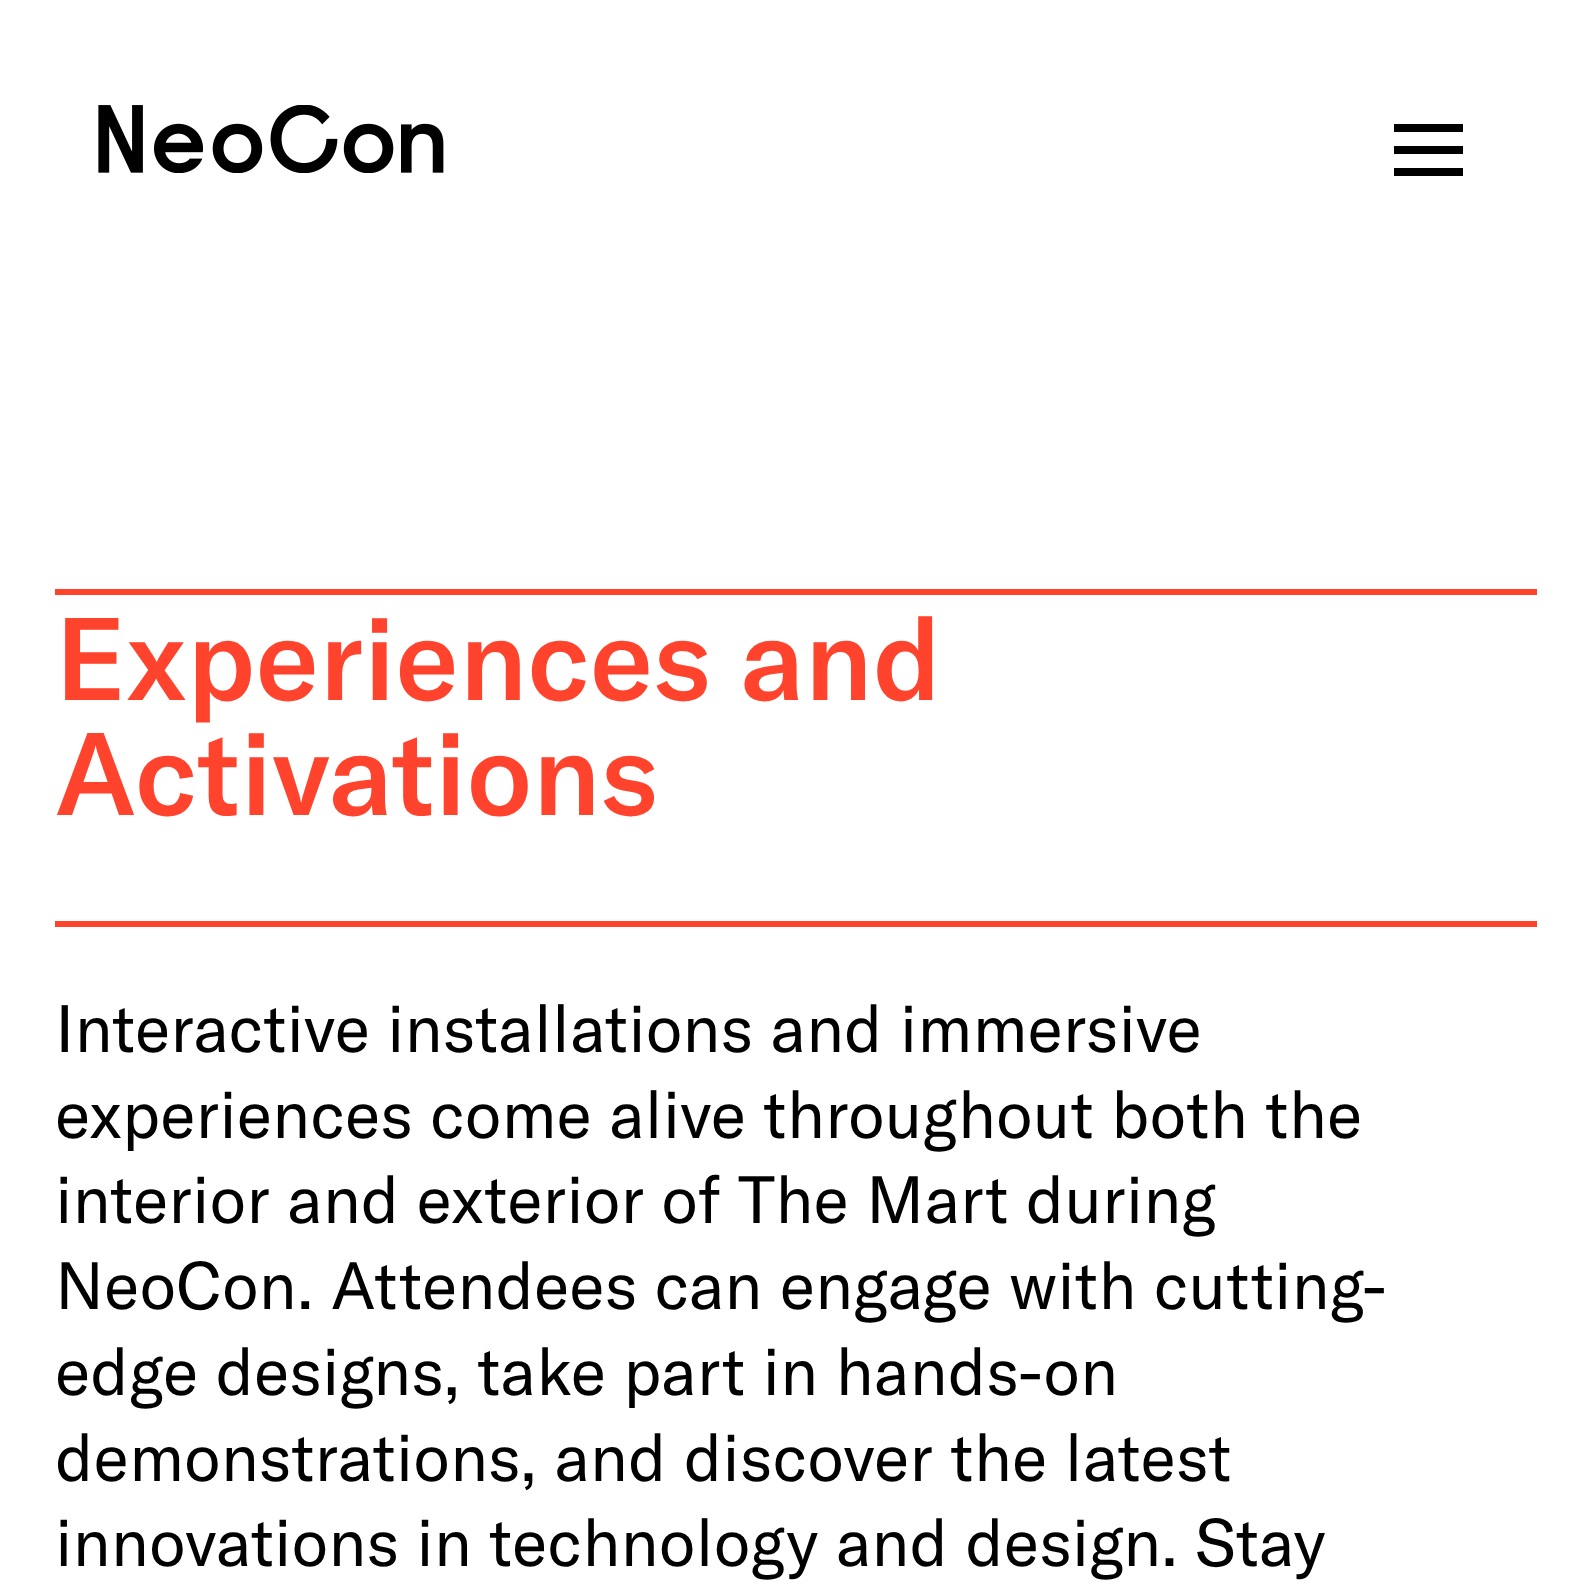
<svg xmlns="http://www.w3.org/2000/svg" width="1590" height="1590">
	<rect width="100%" height="100%" fill="#FFFFFF" />
	<image x="98" y="105" width="346" height="68" href="assets/img1.png" />
	<rect x="1394" y="124" width="69" height="8" fill="#000000" />
	<rect x="1394" y="146" width="69" height="8" fill="#000000" />
	<rect x="1394" y="168" width="69" height="8" fill="#000000" />
	<rect x="55" y="589" width="1482" height="6" fill="#FF432D" />
	<rect x="55" y="921" width="1482" height="6" fill="#FF432D" />
	<g font-family="GT America" font-size="115.5" font-weight="500" fill="#FF432D">
		<text x="55" y="700">Experiences and</text>
		<text x="55" y="815">Activations</text>
	</g>
	<g font-family="GT America" font-size="66" fill="#000000">
		<text x="55" y="1052">Interactive installations and immersive</text>
		<text x="55" y="1138">experiences come alive throughout both the</text>
		<text x="55" y="1223">interior and exterior of The Mart during</text>
		<text x="55" y="1309">NeoCon. Attendees can engage with cutting-</text>
		<text x="55" y="1395">edge designs, take part in hands-on</text>
		<text x="55" y="1481">demonstrations, and discover the latest</text>
		<text x="55" y="1566">innovations in technology and design. Stay</text>
	</g>
</svg>
